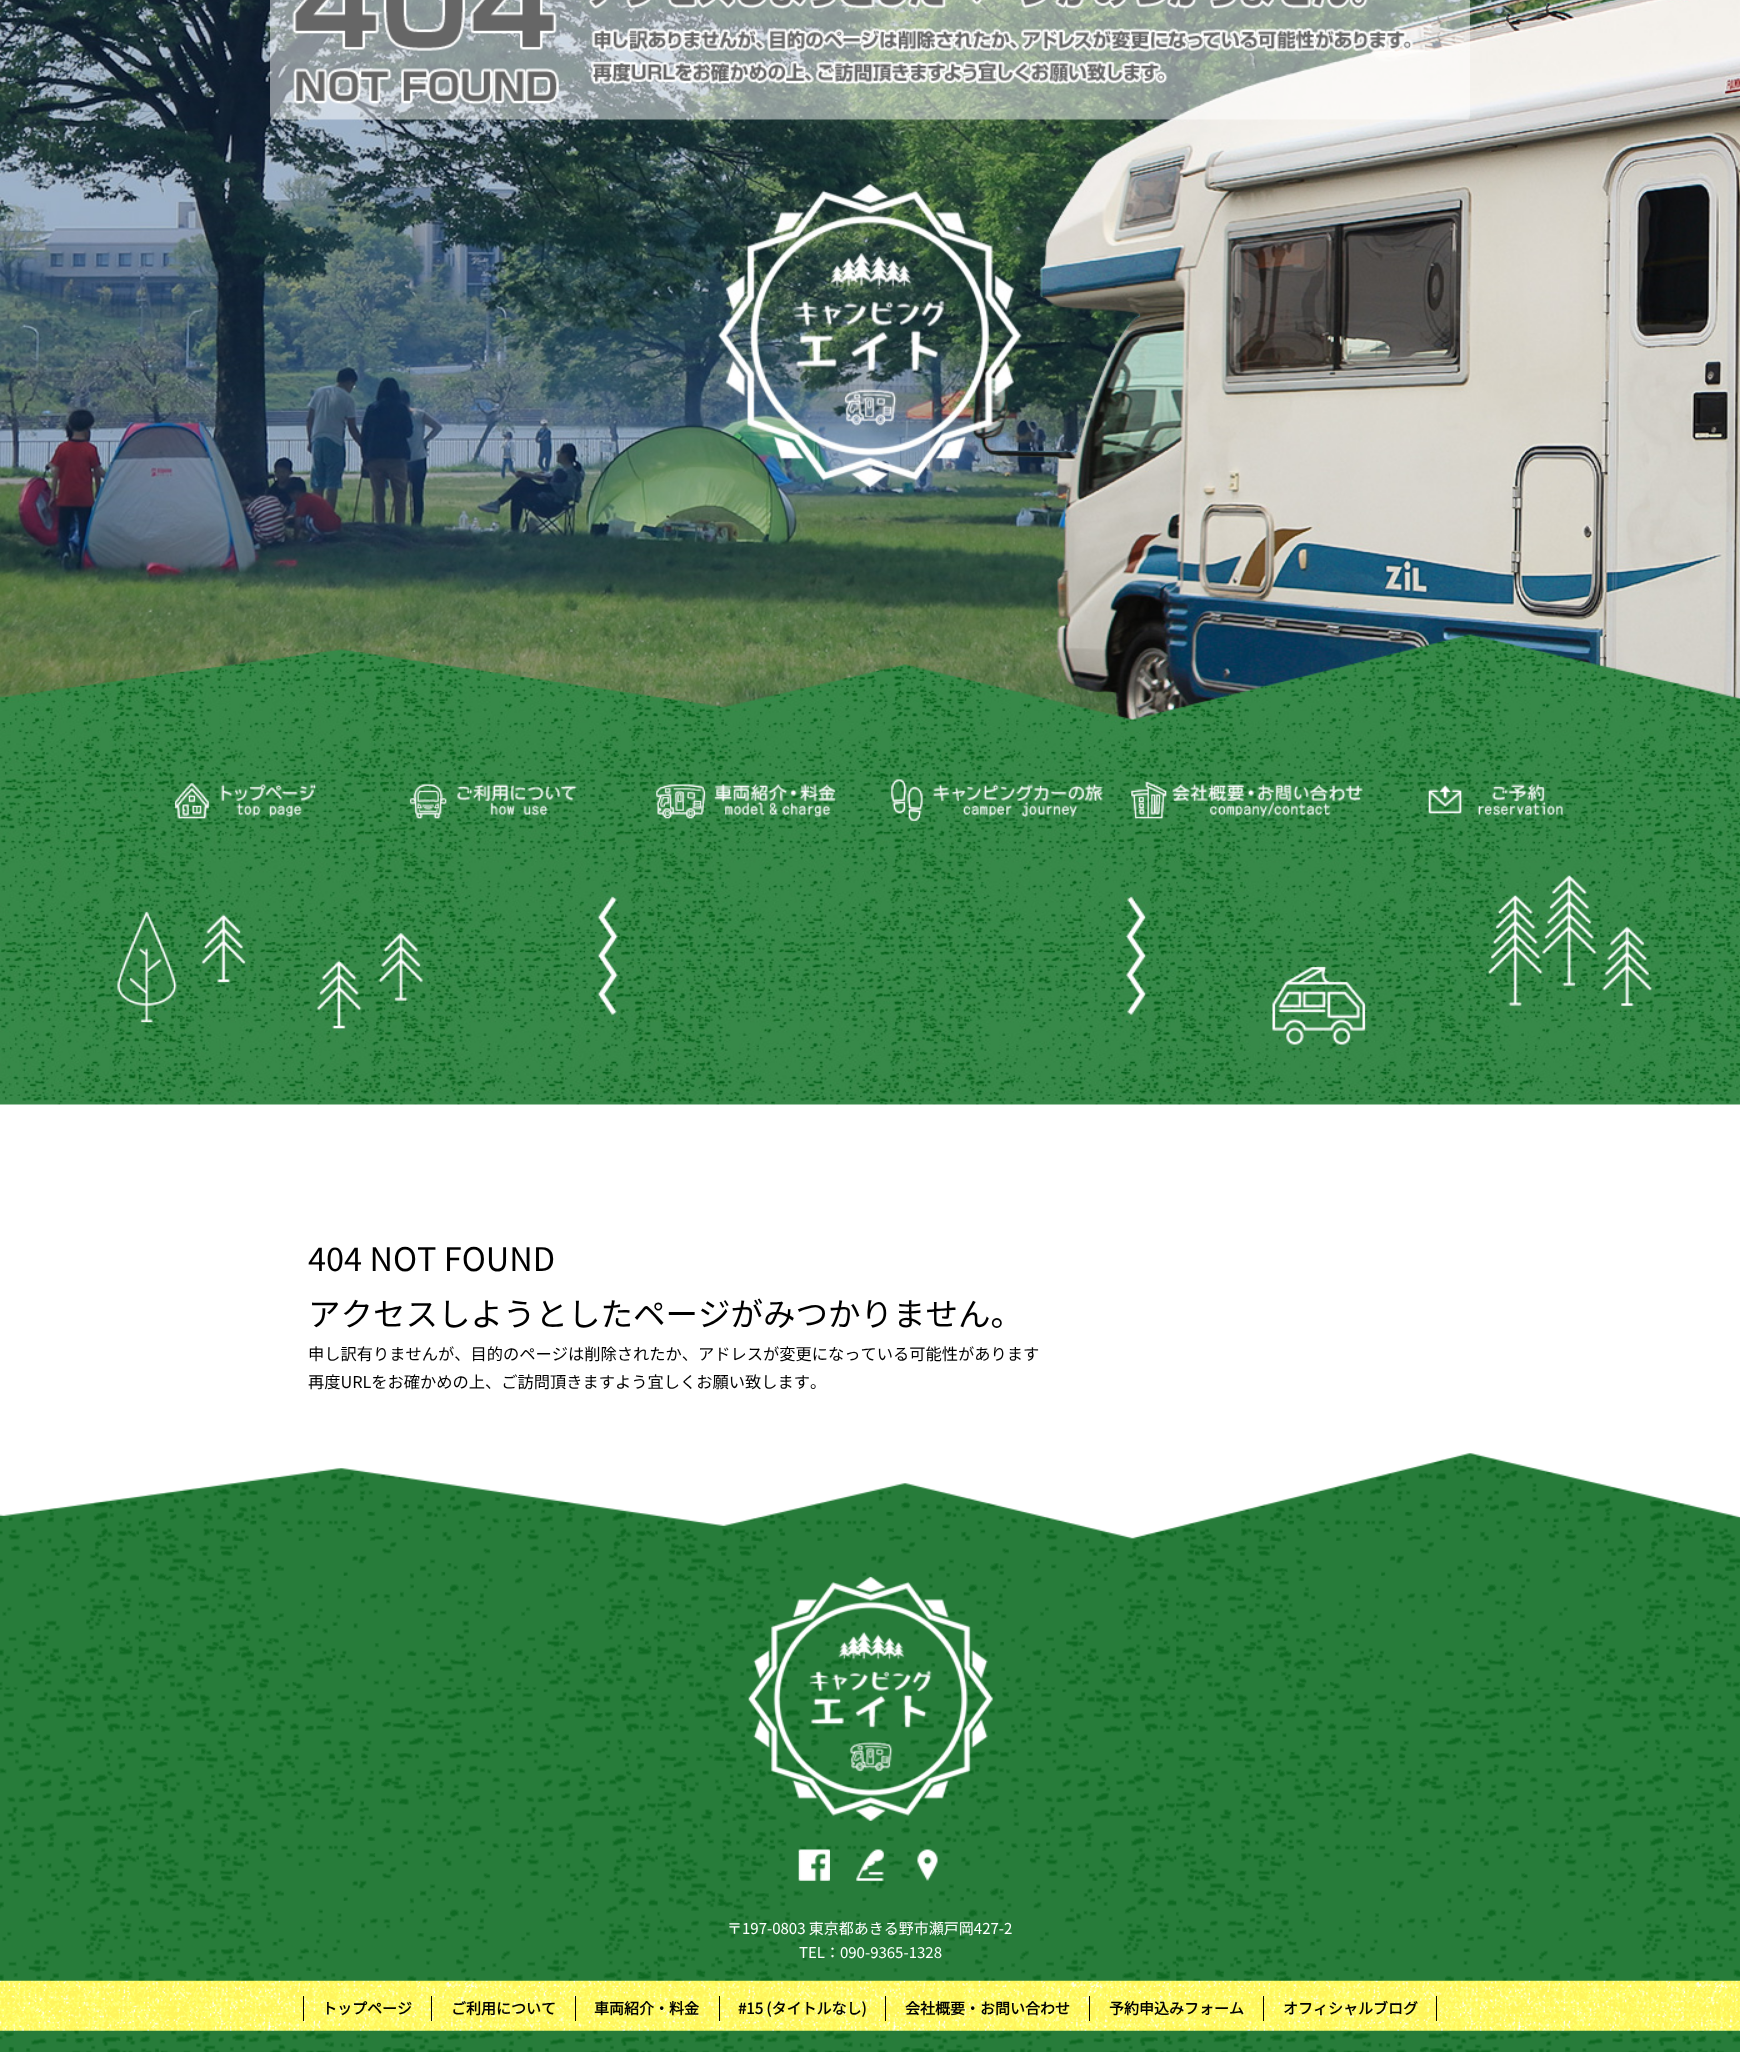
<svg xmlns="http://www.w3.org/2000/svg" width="1740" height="2052">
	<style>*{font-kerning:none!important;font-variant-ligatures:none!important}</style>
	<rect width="100%" height="100%" fill="#FFFFFF" />
	<image x="0" y="0" width="1740" height="1105" href="assets/img1.png" />
	<image x="270" y="0" width="1200" height="120" href="assets/img2.png" />
	<image x="174" y="783" width="143" height="36" href="assets/img3.png" />
	<image x="409" y="784" width="168" height="35" href="assets/img4.png" />
	<image x="656" y="784" width="180" height="35" href="assets/img5.png" />
	<image x="891" y="779" width="212" height="42" href="assets/img6.png" />
	<image x="1131" y="781" width="232" height="38" href="assets/img7.png" />
	<image x="1428" y="784" width="135" height="32" href="assets/img8.png" />
	<g font-family="Noto Sans JP" font-size="32.5" font-weight="100" fill="#000000">
		<text x="308" y="1271">404 NOT FOUND</text>
		<text x="308" y="1326">アクセスしようとしたページがみつかりません。</text>
	</g>
	<g font-family="Noto Sans JP" font-size="16.25" font-weight="100" fill="#000000">
		<text x="308" y="1360">申し訳有りませんが、目的のページは削除されたか、アドレスが変更になっている可能性があります</text>
		<text x="308" y="1388">再度URLをお確かめの上、ご訪問頂きますよう宜しくお願い致します。</text>
	</g>
	<image x="0" y="1453" width="1740" height="599" href="assets/img9.png" />
	<image x="748" y="1576" width="245" height="245" href="assets/img10.png" />
	<image x="798" y="1849" width="32" height="32" href="assets/img11.png" />
	<image x="856" y="1849" width="28" height="32" href="assets/img12.png" />
	<image x="917" y="1849" width="21" height="32" href="assets/img13.png" />
	<g font-family="Noto Sans JP" font-size="15" font-weight="100" fill="#FFFFFF">
		<text x="727" y="1934">〒197-0803 東京都あきる野市瀬戸岡427-2</text>
		<text x="799" y="1958">TEL：090-9365-1328</text>
	</g>
	<rect x="431" y="1996" width="1" height="25" fill="#000000" />
	<rect x="303" y="1996" width="1" height="25" fill="#000000" />
	<text x="322" y="2014" font-family="Noto Sans JP" font-size="15" font-weight="700" fill="#000000">トップページ</text>
	<rect x="575" y="1996" width="1" height="25" fill="#000000" />
	<text x="451" y="2014" font-family="Noto Sans JP" font-size="15" font-weight="700" fill="#000000">ご利用について</text>
	<rect x="719" y="1996" width="1" height="25" fill="#000000" />
	<text x="594" y="2014" font-family="Noto Sans JP" font-size="15" font-weight="700" fill="#000000">車両紹介・料金</text>
	<rect x="885" y="1996" width="1" height="25" fill="#000000" />
	<text x="738" y="2014" font-family="Noto Sans JP" font-size="15" font-weight="700" fill="#000000">#15 (タイトルなし)</text>
	<rect x="1089" y="1996" width="1" height="25" fill="#000000" />
	<text x="905" y="2014" font-family="Noto Sans JP" font-size="15" font-weight="700" fill="#000000">会社概要・お問い合わせ</text>
	<rect x="1263" y="1996" width="1" height="25" fill="#000000" />
	<text x="1109" y="2014" font-family="Noto Sans JP" font-size="15" font-weight="700" fill="#000000">予約申込みフォーム</text>
	<rect x="1436" y="1996" width="1" height="25" fill="#000000" />
	<text x="1283" y="2014" font-family="Noto Sans JP" font-size="15" font-weight="700" fill="#000000">オフィシャルブログ</text>
</svg>
